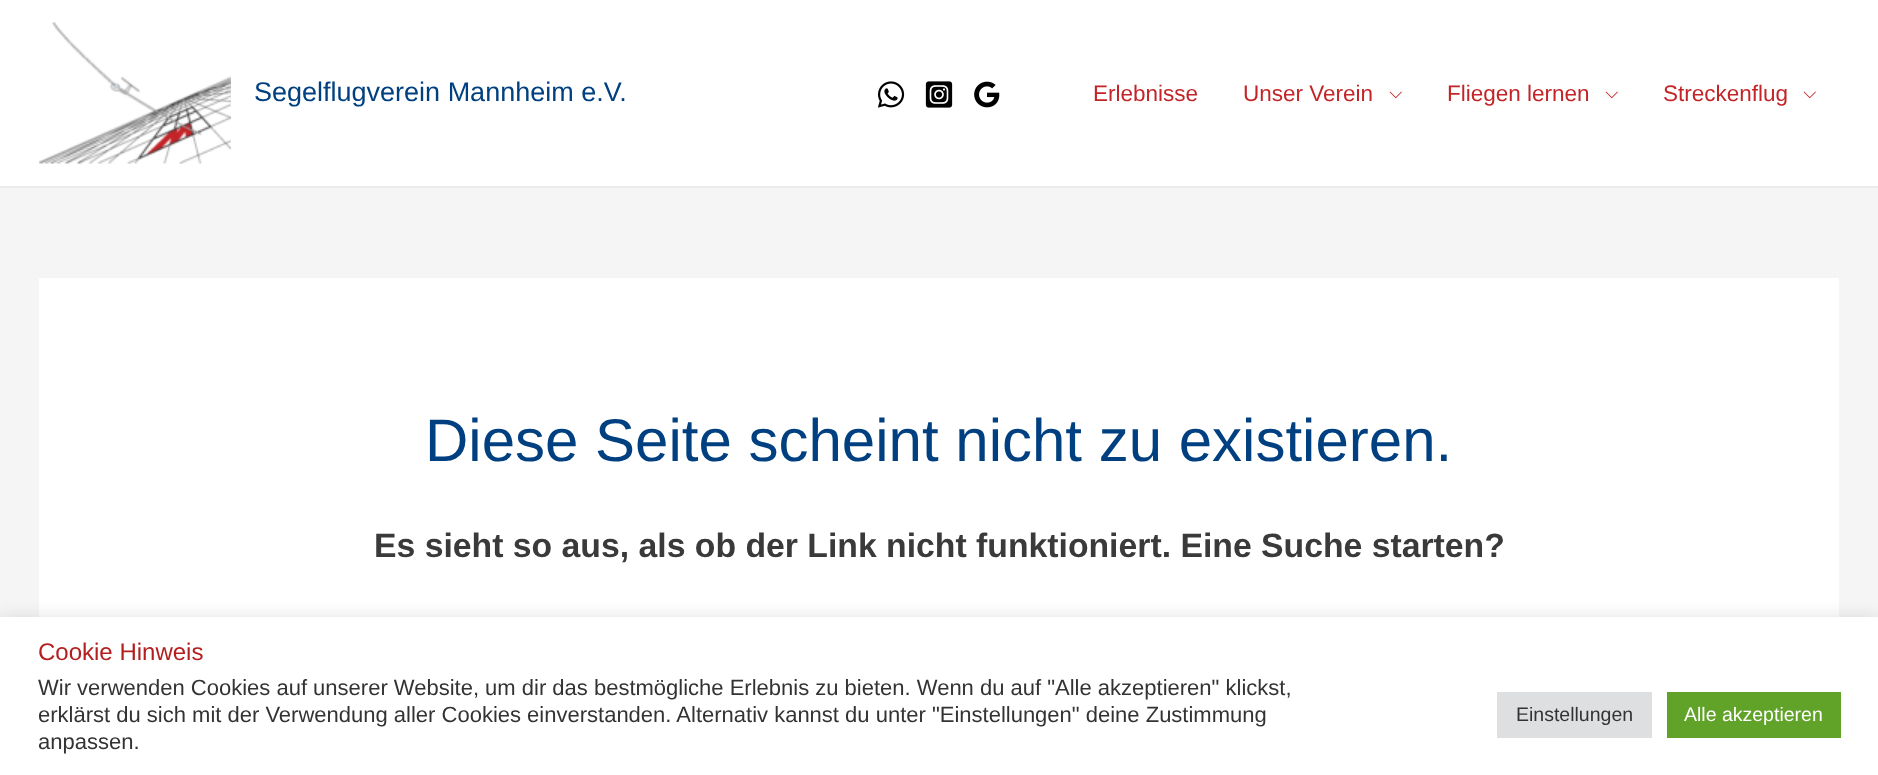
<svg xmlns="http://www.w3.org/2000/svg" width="1878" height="775">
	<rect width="100%" height="100%" fill="#F5F5F5" />
	<rect x="0" y="0" width="1878" height="186" fill="#FFFFFF" />
	<rect x="0" y="186" width="1878" height="2" fill="#EAEAEA" />
	<image x="39" y="22" width="192" height="142" href="assets/img1.png" />
	<text x="254" y="101" font-family="Liberation Sans" font-size="27" fill="#004080">Segelflugverein Mannheim e.V.</text>
	<image x="877" y="81" width="28" height="27" href="assets/img2.png" />
	<image x="925" y="81" width="28" height="27" href="assets/img3.png" />
	<image x="974" y="81" width="26" height="27" href="assets/img4.png" />
	<g font-family="Liberation Sans" font-size="22.5" fill="#C32428">
		<text x="1093" y="101">Erlebnisse</text>
		<text x="1243" y="101">Unser Verein</text>
	</g>
	<image x="1389" y="91" width="13" height="8" href="assets/img5.png" />
	<text x="1447" y="101" font-family="Liberation Sans" font-size="22.5" fill="#C32428">Fliegen lernen</text>
	<image x="1605" y="91" width="13" height="8" href="assets/img5.png" />
	<text x="1663" y="101" font-family="Liberation Sans" font-size="22.5" fill="#C32428">Streckenflug</text>
	<image x="1803" y="91" width="13" height="8" href="assets/img5.png" />
	<rect x="39" y="278" width="1800" height="339" fill="#FFFFFF" />
	<text x="425" y="461" font-family="Liberation Sans" font-size="60" fill="#004080">Diese Seite scheint nicht zu existieren.</text>
	<text x="374" y="557" font-family="Liberation Sans" font-size="33.75" font-weight="700" fill="#3A3A3A">Es sieht so aus, als ob der Link nicht funktioniert. Eine Suche starten?</text>
	<rect x="0" y="615" width="1878" height="159" fill="#ACABAB" fill-opacity="0.3" filter="blur(7.5px)" />
	<rect x="0" y="617" width="1878" height="158" fill="#FFFFFF" />
	<text x="38" y="660" font-family="Liberation Sans" font-size="24" fill="#B41E1E">Cookie Hinweis</text>
	<g font-family="Liberation Sans" font-size="22" fill="#333333">
		<text x="38" y="695">Wir verwenden Cookies auf unserer Website, um dir das bestmögliche Erlebnis zu bieten. Wenn du auf "Alle akzeptieren" klickst,</text>
		<text x="38" y="722">erklärst du sich mit der Verwendung aller Cookies einverstanden. Alternativ kannst du unter "Einstellungen" deine Zustimmung</text>
		<text x="38" y="749">anpassen.</text>
	</g>
	<rect x="1497" y="692" width="155" height="46" fill="#DEDFE0" />
	<text x="1516" y="721" font-family="Liberation Sans" font-size="19.5" fill="#333333">Einstellungen</text>
	<rect x="1667" y="692" width="174" height="46" fill="#61A229" />
	<text x="1684" y="721" font-family="Liberation Sans" font-size="19.5" fill="#FFFFFF">Alle akzeptieren</text>
</svg>
